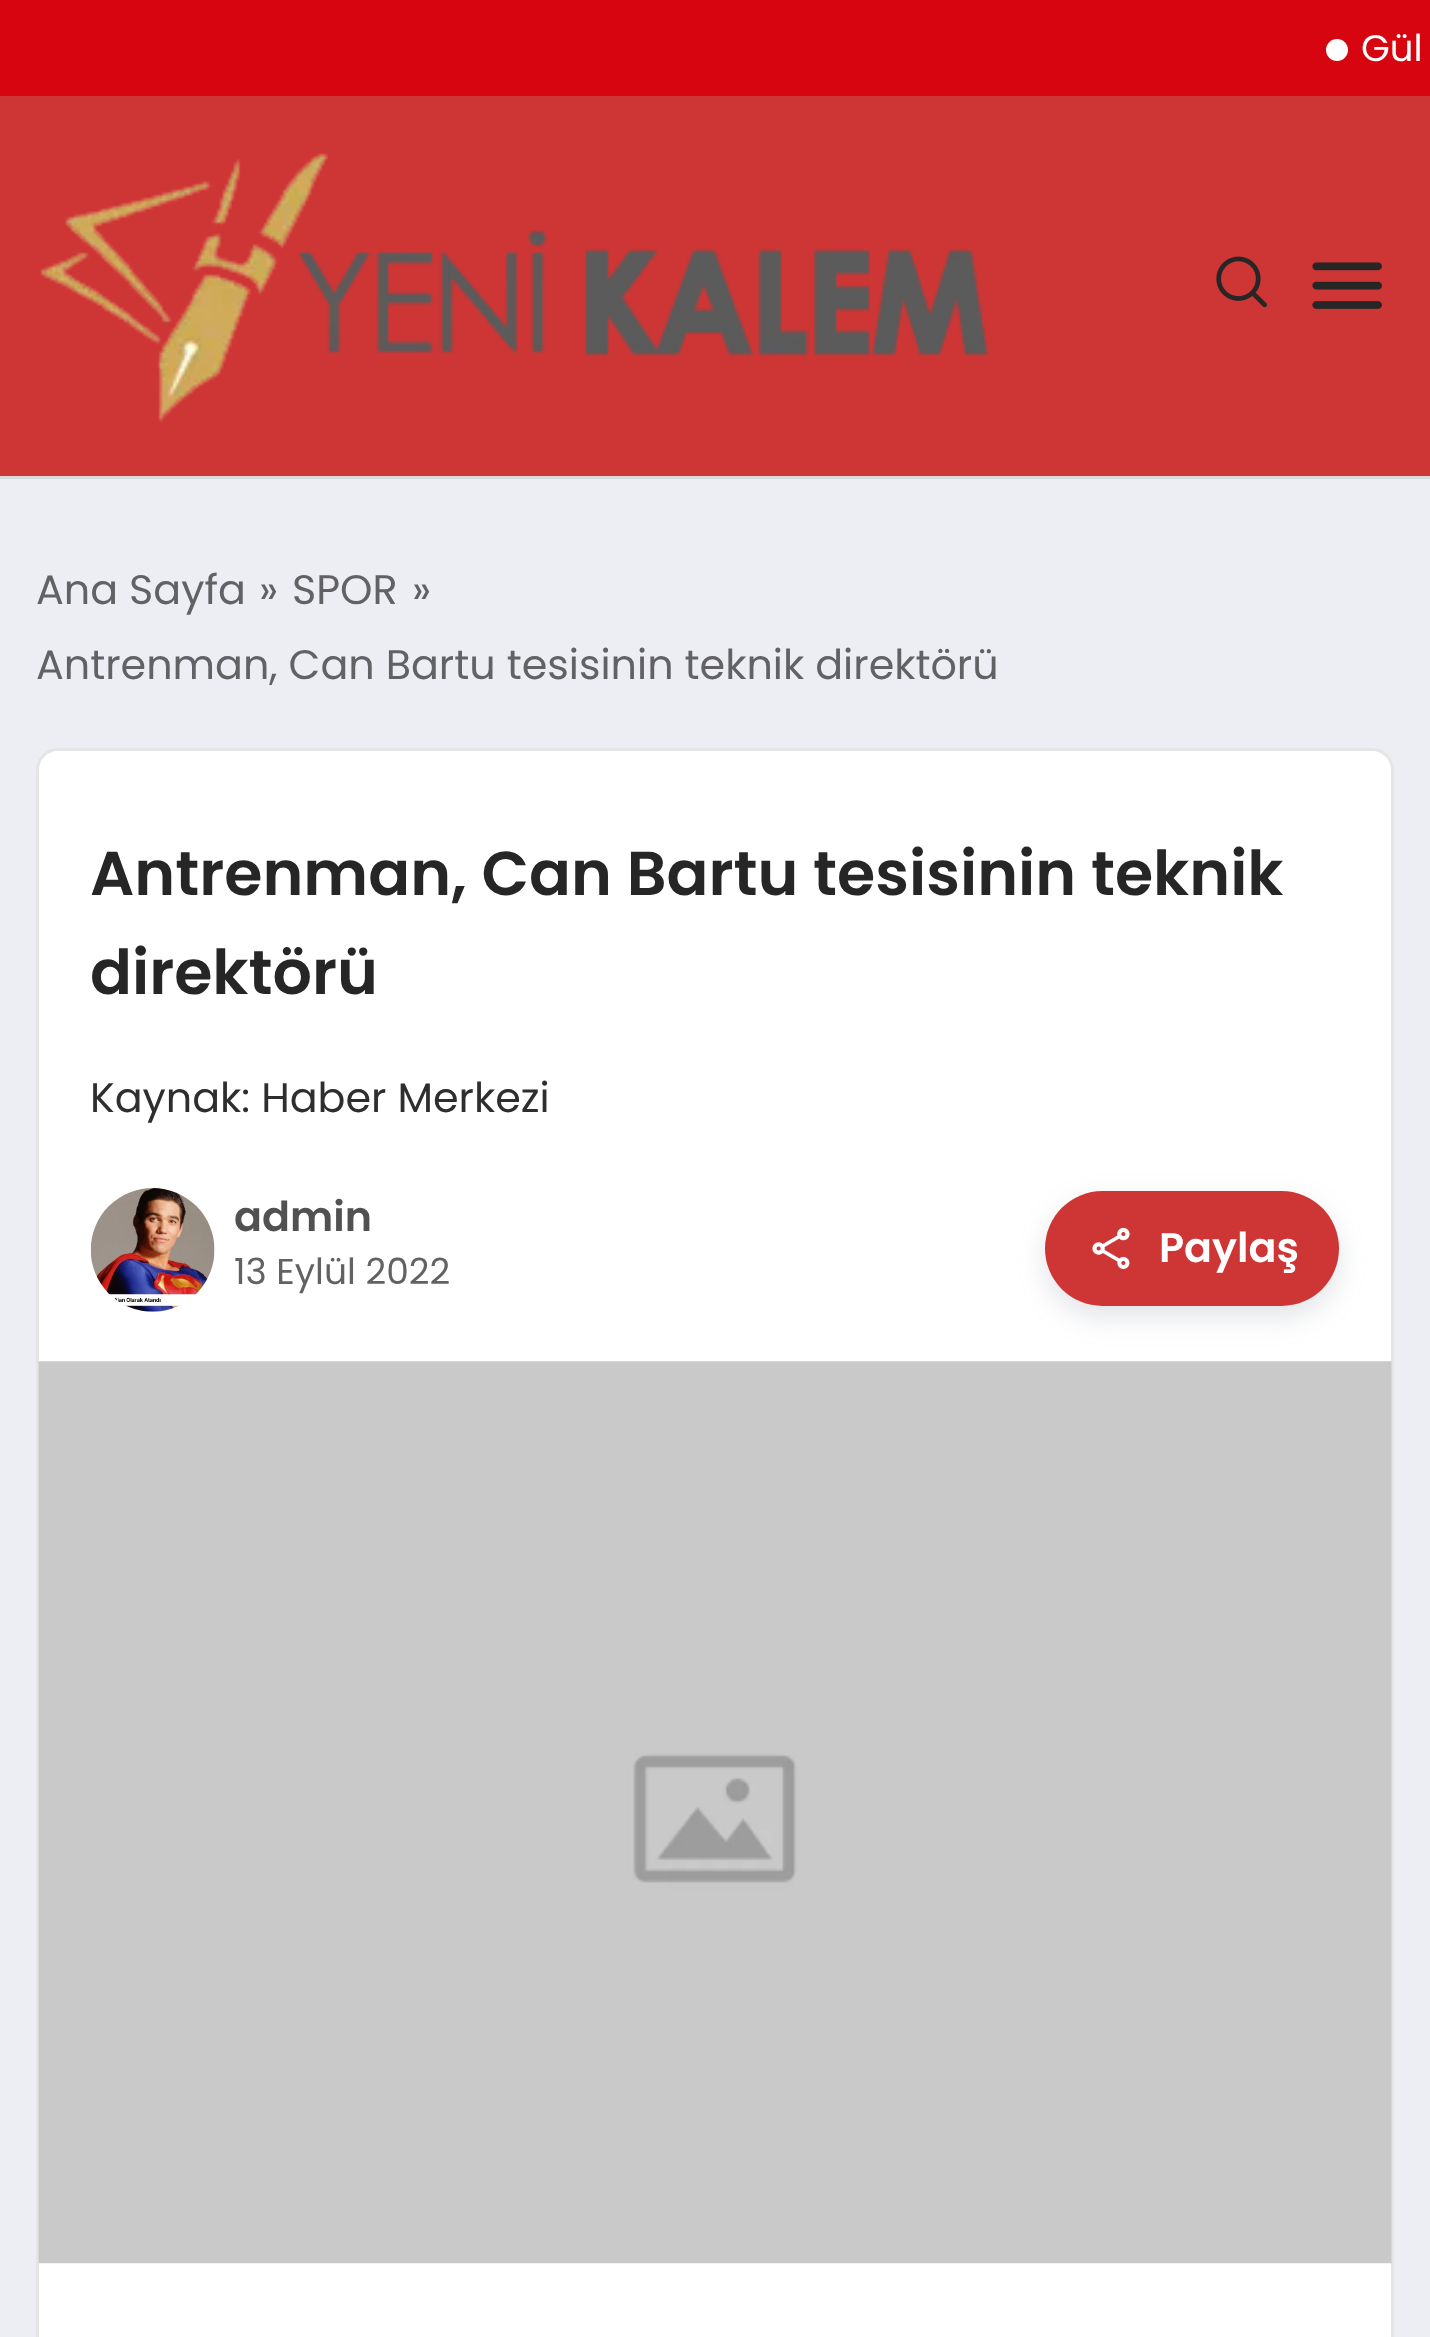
<svg xmlns="http://www.w3.org/2000/svg" width="1430" height="2337">
	<rect width="100%" height="100%" fill="#EDEDF4" />
	<rect x="0" y="0" width="1430" height="96" fill="#D7050F" />
	<circle cx="1337" cy="50" r="11" fill="#FFFFFF" />
	<text x="1361" y="61" font-family="Poppins" font-size="37" fill="#FFFFFF">Gül</text>
	<rect x="0" y="96" width="1430" height="380" fill="#CE3636" />
	<image x="40" y="153" width="949" height="269" href="assets/img1.png" />
	<image x="1216" y="256" width="51" height="52" href="assets/img2.png" />
	<image x="1312" y="262" width="70" height="47" href="assets/img3.png" />
	<rect x="0" y="476" width="1430" height="3" fill="#D9D9D9" />
	<g font-family="Poppins" font-size="41.25" fill="#626264">
		<text x="36" y="604">Ana Sayfa</text>
		<text x="259" y="604">»</text>
		<text x="292" y="604">SPOR</text>
		<text x="412" y="604">»</text>
		<text x="36" y="679">Antrenman, Can Bartu tesisinin teknik direktörü</text>
	</g>
	<rect x="36" y="748" width="1358" height="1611" rx="22" fill="#FFFFFF" />
	<rect x="37.5" y="749.5" width="1355" height="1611" rx="20.5" fill="none" stroke="#000000" stroke-opacity="0.1" stroke-width="3" />
	<g font-family="Poppins" font-size="61.9" font-weight="600" fill="#262626">
		<text x="90" y="895">Antrenman, Can Bartu tesisinin teknik</text>
		<text x="90" y="994">direktörü</text>
	</g>
	<text x="90" y="1112" font-family="Poppins" font-size="41.25" fill="#2E2E2E">Kaynak: Haber Merkezi</text>
	<image x="90" y="1188" width="125" height="124" href="assets/img4.png" />
	<text x="234" y="1231" font-family="Poppins" font-size="41.25" font-weight="600" fill="#515151">admin</text>
	<text x="234" y="1284" font-family="Poppins" font-size="36" fill="#626264">13 Eylül 2022</text>
	<rect x="1045" y="1202" width="294" height="115" rx="57.5" fill="#6B7280" fill-opacity="0.2" filter="blur(14px)" />
	<rect x="1045" y="1191" width="294" height="115" rx="57.5" fill="#CE3636" />
	<image x="1092" y="1227" width="38" height="42" href="assets/img5.png" />
	<text x="1159" y="1262" font-family="Poppins" font-size="41.25" font-weight="600" fill="#FFFFFF">Paylaş</text>
	<image x="38" y="1361" width="1354" height="903" href="assets/img6.png" />
</svg>
